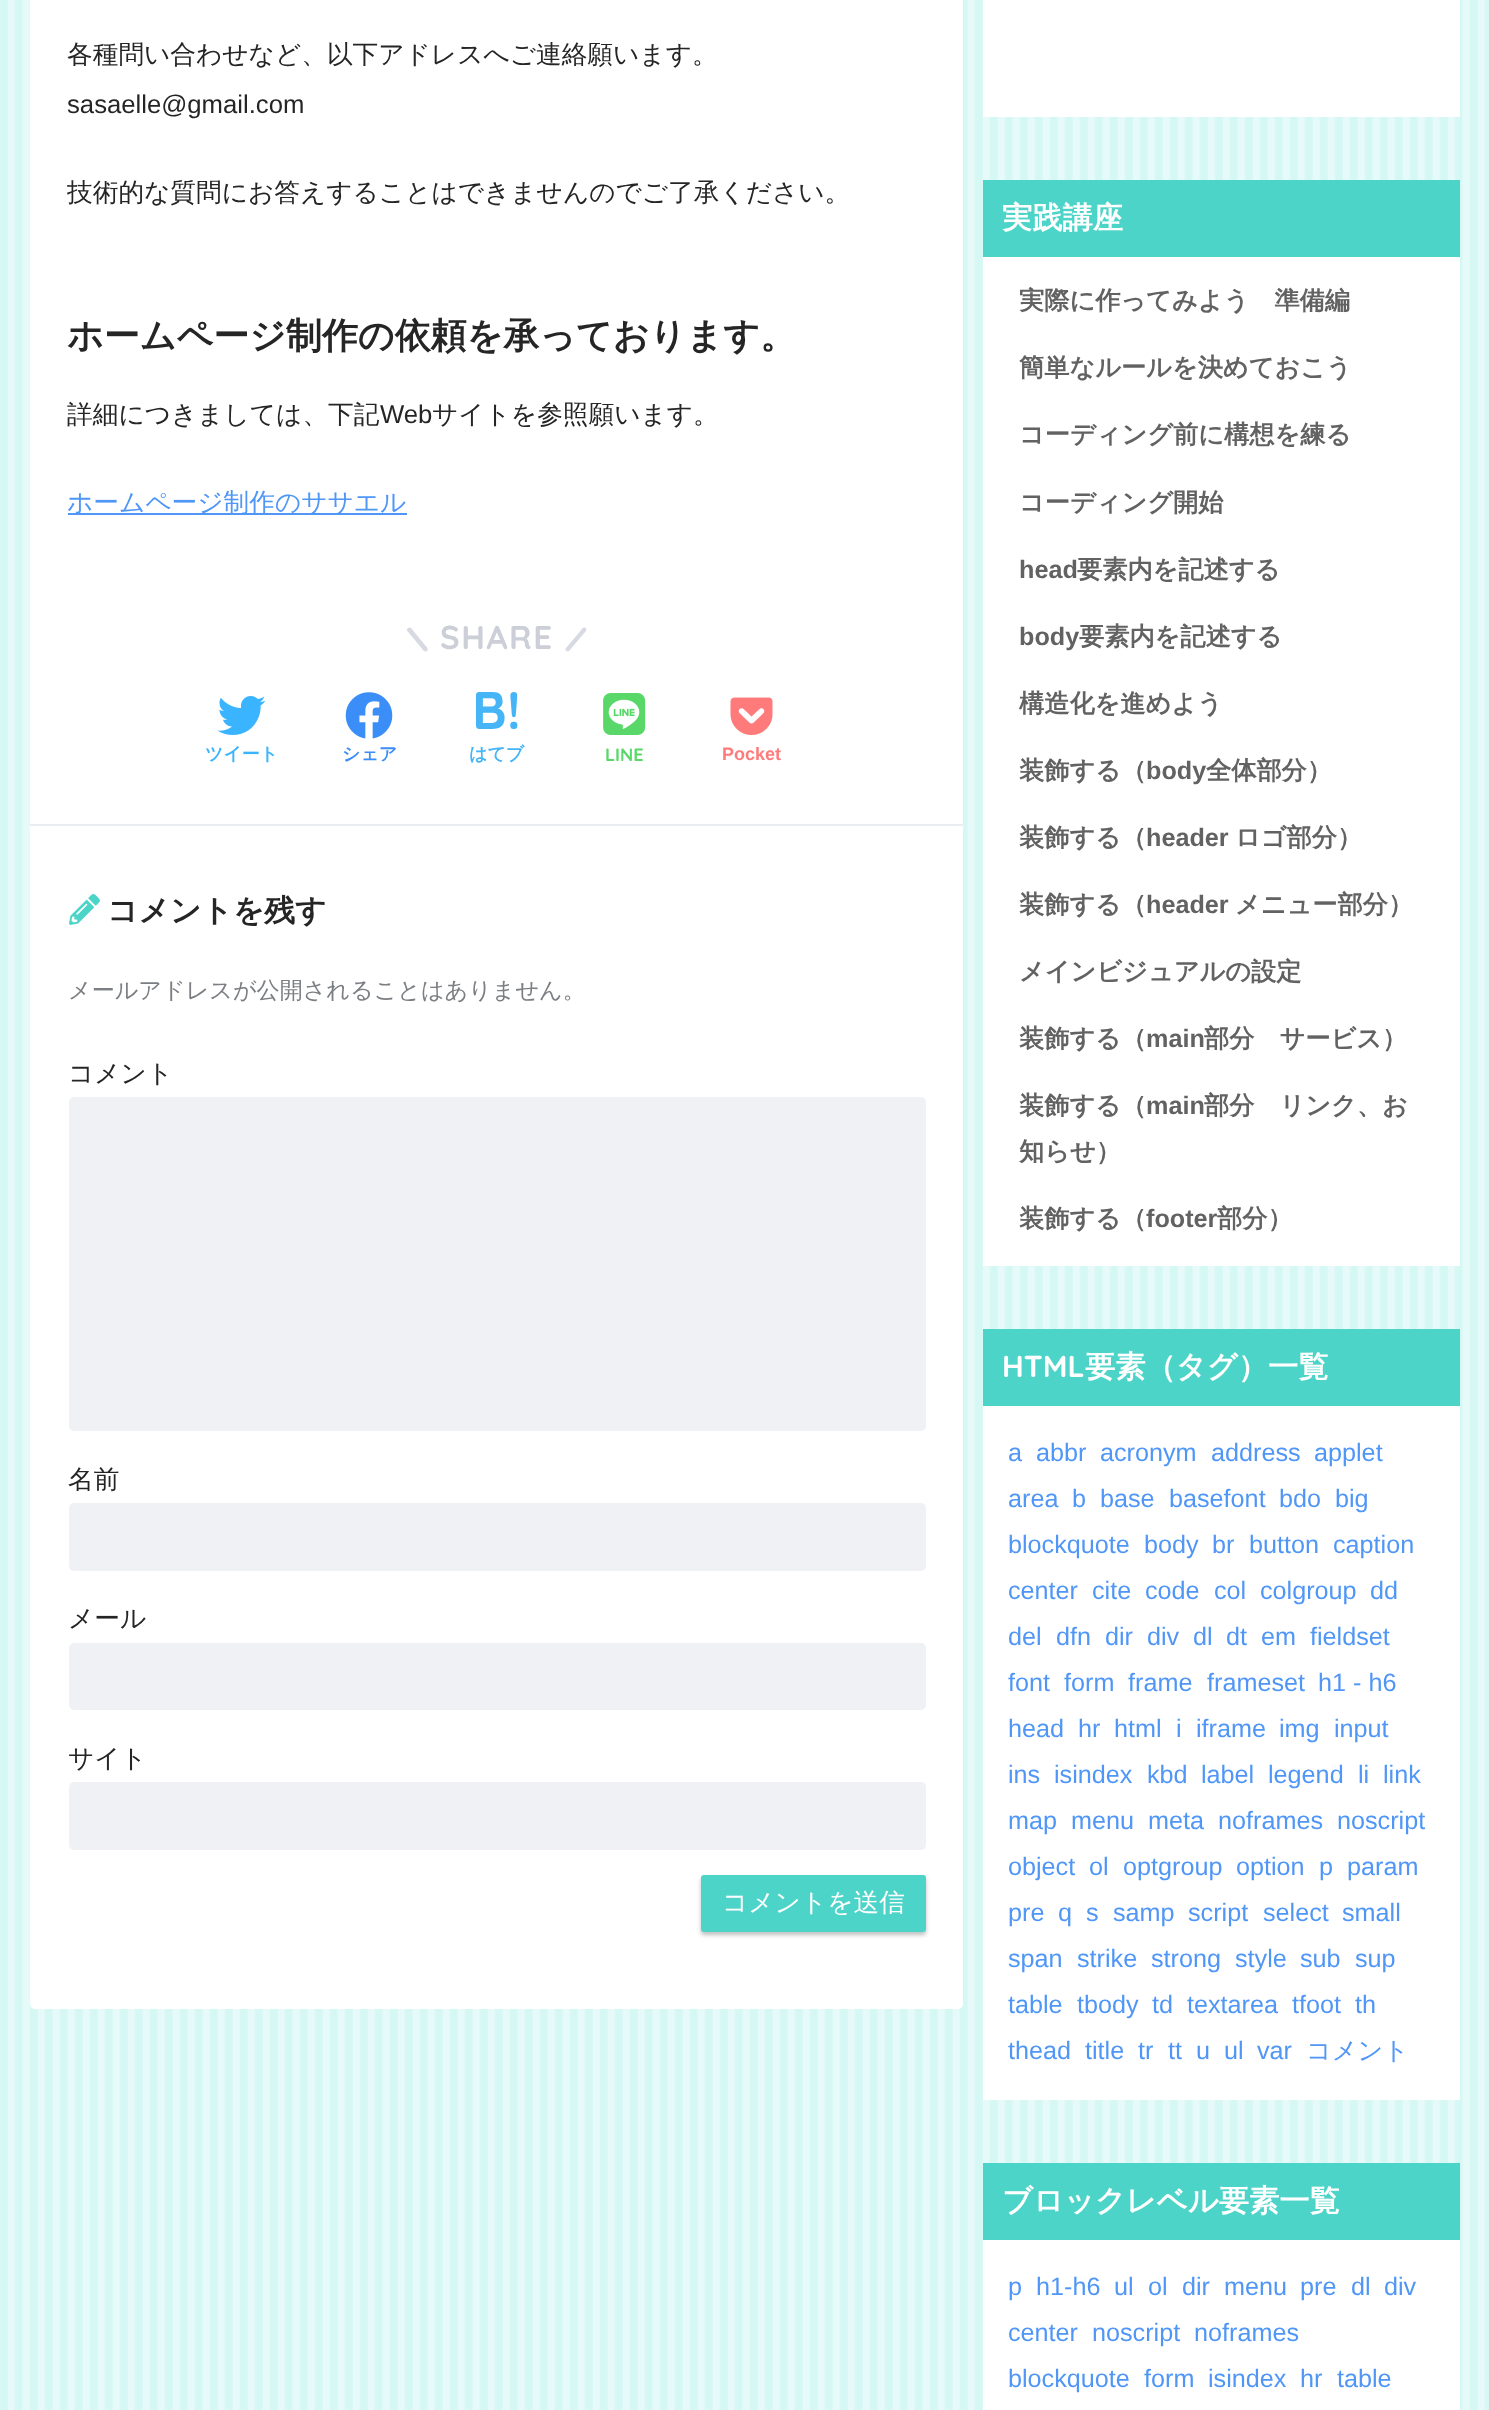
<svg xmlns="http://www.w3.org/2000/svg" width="1489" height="2410">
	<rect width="100%" height="100%" fill="#FFFFFF" />
	<image x="0" y="0" width="1489" height="2410" href="assets/img1.png" />
	<rect x="30" y="-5" width="933" height="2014" rx="5" fill="#FFFFFF" />
	<text x="67" y="63" font-family="WenQuanYi Zen Hei" font-size="25.7" font-weight="500" fill="#252525">各種問い合わせなど、以下アドレスへご連絡願います。</text>
	<text x="67" y="113" font-family="Liberation Sans" font-size="25.7" fill="#252525">sasaelle@gmail.com</text>
	<text x="67" y="201" font-family="WenQuanYi Zen Hei" font-size="25.7" font-weight="500" fill="#252525">技術的な質問にお答えすることはできませんのでご了承ください。</text>
	<text x="67" y="348" font-family="WenQuanYi Zen Hei" font-size="35.95" font-weight="700" fill="#252525">ホームページ制作の依頼を承っております。</text>
	<text x="67" y="423" font-family="WenQuanYi Zen Hei" font-size="25.7" font-weight="500" fill="#252525">詳細につきましては、下記</text>
	<text x="380" y="423" font-family="Liberation Sans" font-size="25.7" fill="#252525">Web</text>
	<text x="432" y="423" font-family="WenQuanYi Zen Hei" font-size="25.7" font-weight="500" fill="#252525">サイトを参照願います。</text>
	<rect x="68" y="513" width="339" height="2" fill="#4F96F6" />
	<text x="67" y="511" font-family="WenQuanYi Zen Hei" font-size="25.7" font-weight="500" fill="#4F96F6">ホームページ制作のササエル</text>
	<path d="M411 628L424.5 644.5C425.5 645.5 429.5 649 427 651C424.5 653 422 648.5 421 647.5L407 630.5C406.5 628 409.5 626.5 411 628Z" fill="#D8DAE1" />
	<text x="440" y="649" font-family="Quicksand" font-size="33" font-weight="700" letter-spacing="1.5" fill="#CCCFD7">SHARE</text>
	<path d="M566 648L580 631.5C581 630.5 583 626 585.5 628C588 630 584 633 583 634.5L569 651C566.5 652.5 564.5 649.5 566 648Z" fill="#D8DAE1" />
	<image x="217" y="696" width="49" height="39" href="assets/img2.png" />
	<text x="205" y="760" font-family="WenQuanYi Zen Hei" font-size="18" font-weight="700" fill="#3AB4FF">ツイート</text>
	<image x="345" y="692" width="48" height="47" href="assets/img3.png" />
	<text x="342" y="760" font-family="WenQuanYi Zen Hei" font-size="18" font-weight="700" fill="#3B8DF7">シェア</text>
	<text x="472" y="729" font-family="Quicksand" font-size="53" font-weight="700" fill="#45B5F7">B!</text>
	<text x="469" y="760" font-family="WenQuanYi Zen Hei" font-size="18" font-weight="700" fill="#45B5F7">はてブ</text>
	<image x="603" y="693" width="43" height="42" href="assets/img4.png" />
	<text x="605" y="761" font-family="Quicksand" font-size="18" font-weight="700" fill="#59D869">LINE</text>
	<image x="730" y="697" width="43" height="38" href="assets/img5.png" />
	<text x="722" y="760" font-family="Liberation Sans" font-size="18" font-weight="700" fill="#FF7B7B">Pocket</text>
	<rect x="30" y="824" width="933" height="2" fill="#EAEDF2" />
	<image x="69" y="894" width="31" height="31" href="assets/img6.png" />
	<text x="107" y="921" font-family="WenQuanYi Zen Hei" font-size="30.75" font-weight="700" fill="#252525">コメントを残す</text>
	<text x="68" y="998" font-family="WenQuanYi Zen Hei" font-size="23.1" font-weight="500" fill="#7B7E82">メールアドレスが公開されることはありません。</text>
	<text x="68" y="1082" font-family="WenQuanYi Zen Hei" font-size="25.7" font-weight="500" fill="#252525">コメント</text>
	<rect x="69" y="1097" width="857" height="334" rx="5" fill="#EFF1F5" />
	<text x="68" y="1488" font-family="WenQuanYi Zen Hei" font-size="25.7" font-weight="500" fill="#252525">名前</text>
	<rect x="69" y="1503" width="857" height="68" rx="5" fill="#EFF1F5" />
	<text x="68" y="1627" font-family="WenQuanYi Zen Hei" font-size="25.7" font-weight="500" fill="#252525">メール</text>
	<rect x="69" y="1643" width="857" height="67" rx="5" fill="#EFF1F5" />
	<text x="68" y="1767" font-family="WenQuanYi Zen Hei" font-size="25.7" font-weight="500" fill="#252525">サイト</text>
	<rect x="69" y="1782" width="857" height="68" rx="5" fill="#EFF1F5" />
	<rect x="701" y="1878" width="225" height="57" rx="3" fill="#000000" fill-opacity="0.25" filter="blur(2px)" />
	<rect x="701" y="1875" width="225" height="57" rx="3" fill="#4DD4C8" />
	<text x="722" y="1911" font-family="WenQuanYi Zen Hei" font-size="25.7" font-weight="500" fill="#FFFFFF">コメントを送信</text>
	<rect x="983" y="0" width="477" height="117" fill="#FFFFFF" />
	<rect x="983" y="257" width="477" height="1009" fill="#FFFFFF" />
	<rect x="983" y="180" width="477" height="77" fill="#4DD4C8" />
	<text x="1002" y="228" font-family="WenQuanYi Zen Hei" font-size="30.25" font-weight="700" fill="#FFFFFF">実践講座</text>
	<g font-family="WenQuanYi Zen Hei" font-size="25.2" font-weight="700" fill="#626262">
		<text x="1019" y="309">実際に作ってみよう　準備編</text>
		<text x="1019" y="376">簡単なルールを決めておこう</text>
		<text x="1019" y="443">コーディング前に構想を練る</text>
		<text x="1019" y="511">コーディング開始</text>
	</g>
	<text x="1019" y="578" font-family="Liberation Sans" font-size="25.2" font-weight="700" fill="#626262">head</text>
	<text x="1077" y="578" font-family="WenQuanYi Zen Hei" font-size="25.2" font-weight="700" fill="#626262">要素内を記述する</text>
	<text x="1019" y="645" font-family="Liberation Sans" font-size="25.2" font-weight="700" fill="#626262">body</text>
	<g font-family="WenQuanYi Zen Hei" font-size="25.2" font-weight="700" fill="#626262">
		<text x="1079" y="645">要素内を記述する</text>
		<text x="1019" y="712">構造化を進めよう</text>
		<text x="1019" y="779">装飾する（</text>
	</g>
	<text x="1146" y="779" font-family="Liberation Sans" font-size="25.2" font-weight="700" fill="#626262">body</text>
	<g font-family="WenQuanYi Zen Hei" font-size="25.2" font-weight="700" fill="#626262">
		<text x="1206" y="779">全体部分）</text>
		<text x="1019" y="846">装飾する（</text>
	</g>
	<text x="1146" y="846" font-family="Liberation Sans" font-size="25.2" font-weight="700" fill="#626262">header</text>
	<g font-family="WenQuanYi Zen Hei" font-size="25.2" font-weight="700" fill="#626262">
		<text x="1235" y="846">ロゴ部分）</text>
		<text x="1019" y="913">装飾する（</text>
	</g>
	<text x="1146" y="913" font-family="Liberation Sans" font-size="25.2" font-weight="700" fill="#626262">header</text>
	<g font-family="WenQuanYi Zen Hei" font-size="25.2" font-weight="700" fill="#626262">
		<text x="1235" y="913">メニュー部分）</text>
		<text x="1019" y="980">メインビジュアルの設定</text>
		<text x="1019" y="1047">装飾する（</text>
	</g>
	<text x="1146" y="1047" font-family="Liberation Sans" font-size="25.2" font-weight="700" fill="#626262">main</text>
	<g font-family="WenQuanYi Zen Hei" font-size="25.2" font-weight="700" fill="#626262">
		<text x="1204" y="1047">部分　サービス）</text>
		<text x="1019" y="1114">装飾する（</text>
	</g>
	<text x="1146" y="1114" font-family="Liberation Sans" font-size="25.2" font-weight="700" fill="#626262">main</text>
	<g font-family="WenQuanYi Zen Hei" font-size="25.2" font-weight="700" fill="#626262">
		<text x="1204" y="1114">部分　リンク、お</text>
		<text x="1019" y="1160">知らせ）</text>
		<text x="1019" y="1227">装飾する（</text>
	</g>
	<text x="1146" y="1227" font-family="Liberation Sans" font-size="25.2" font-weight="700" fill="#626262">footer</text>
	<text x="1217" y="1227" font-family="WenQuanYi Zen Hei" font-size="25.2" font-weight="700" fill="#626262">部分）</text>
	<rect x="983" y="1406" width="477" height="694" fill="#FFFFFF" />
	<rect x="983" y="1329" width="477" height="77" fill="#4DD4C8" />
	<text x="1002" y="1377" font-family="Quicksand" font-size="30.25" font-weight="700" fill="#FFFFFF">HTML</text>
	<text x="1085" y="1377" font-family="WenQuanYi Zen Hei" font-size="30.25" font-weight="700" fill="#FFFFFF">要素（タグ）一覧</text>
	<g font-family="Liberation Sans" font-size="25.2" fill="#4F96F6">
		<text x="1008" y="1461">a</text>
		<text x="1036" y="1461">abbr</text>
		<text x="1100" y="1461">acronym</text>
		<text x="1211" y="1461">address</text>
		<text x="1314" y="1461">applet</text>
		<text x="1008" y="1507">area</text>
		<text x="1072" y="1507">b</text>
		<text x="1100" y="1507">base</text>
		<text x="1169" y="1507">basefont</text>
		<text x="1279" y="1507">bdo</text>
		<text x="1335" y="1507">big</text>
		<text x="1008" y="1553">blockquote</text>
		<text x="1144" y="1553">body</text>
		<text x="1212" y="1553">br</text>
		<text x="1249" y="1553">button</text>
		<text x="1333" y="1553">caption</text>
		<text x="1008" y="1599">center</text>
		<text x="1092" y="1599">cite</text>
		<text x="1145" y="1599">code</text>
		<text x="1214" y="1599">col</text>
		<text x="1260" y="1599">colgroup</text>
		<text x="1370" y="1599">dd</text>
		<text x="1008" y="1645">del</text>
		<text x="1056" y="1645">dfn</text>
		<text x="1105" y="1645">dir</text>
		<text x="1147" y="1645">div</text>
		<text x="1193" y="1645">dl</text>
		<text x="1226" y="1645">dt</text>
		<text x="1261" y="1645">em</text>
		<text x="1310" y="1645">fieldset</text>
		<text x="1008" y="1691">font</text>
		<text x="1064" y="1691">form</text>
		<text x="1128" y="1691">frame</text>
		<text x="1207" y="1691">frameset</text>
		<text x="1318" y="1691">h1 - h6</text>
		<text x="1008" y="1737">head</text>
		<text x="1078" y="1737">hr</text>
		<text x="1114" y="1737">html</text>
		<text x="1176" y="1737">i</text>
		<text x="1196" y="1737">iframe</text>
		<text x="1279" y="1737">img</text>
		<text x="1334" y="1737">input</text>
		<text x="1008" y="1783">ins</text>
		<text x="1054" y="1783">isindex</text>
		<text x="1147" y="1783">kbd</text>
		<text x="1201" y="1783">label</text>
		<text x="1268" y="1783">legend</text>
		<text x="1358" y="1783">li</text>
		<text x="1383" y="1783">link</text>
		<text x="1008" y="1829">map</text>
		<text x="1071" y="1829">menu</text>
		<text x="1148" y="1829">meta</text>
		<text x="1218" y="1829">noframes</text>
		<text x="1337" y="1829">noscript</text>
		<text x="1008" y="1875">object</text>
		<text x="1089" y="1875">ol</text>
		<text x="1123" y="1875">optgroup</text>
		<text x="1236" y="1875">option</text>
		<text x="1319" y="1875">p</text>
		<text x="1347" y="1875">param</text>
		<text x="1008" y="1921">pre</text>
		<text x="1058" y="1921">q</text>
		<text x="1086" y="1921">s</text>
		<text x="1113" y="1921">samp</text>
		<text x="1188" y="1921">script</text>
		<text x="1263" y="1921">select</text>
		<text x="1342" y="1921">small</text>
		<text x="1008" y="1967">span</text>
		<text x="1077" y="1967">strike</text>
		<text x="1151" y="1967">strong</text>
		<text x="1235" y="1967">style</text>
		<text x="1300" y="1967">sub</text>
		<text x="1355" y="1967">sup</text>
		<text x="1008" y="2013">table</text>
		<text x="1077" y="2013">tbody</text>
		<text x="1152" y="2013">td</text>
		<text x="1187" y="2013">textarea</text>
		<text x="1292" y="2013">tfoot</text>
		<text x="1355" y="2013">th</text>
		<text x="1008" y="2059">thead</text>
		<text x="1085" y="2059">title</text>
		<text x="1138" y="2059">tr</text>
		<text x="1168" y="2059">tt</text>
		<text x="1196" y="2059">u</text>
		<text x="1224" y="2059">ul</text>
		<text x="1257" y="2059">var</text>
	</g>
	<text x="1306" y="2059" font-family="WenQuanYi Zen Hei" font-size="25.2" font-weight="500" fill="#4F96F6">コメント</text>
	<rect x="983" y="2240" width="477" height="170" fill="#FFFFFF" />
	<rect x="983" y="2163" width="477" height="77" fill="#4DD4C8" />
	<text x="1002" y="2211" font-family="WenQuanYi Zen Hei" font-size="30.25" font-weight="700" fill="#FFFFFF">ブロックレベル要素一覧</text>
	<g font-family="Liberation Sans" font-size="25.2" fill="#4F96F6">
		<text x="1008" y="2295">p</text>
		<text x="1036" y="2295">h1-h6</text>
		<text x="1114" y="2295">ul</text>
		<text x="1148" y="2295">ol</text>
		<text x="1182" y="2295">dir</text>
		<text x="1224" y="2295">menu</text>
		<text x="1300" y="2295">pre</text>
		<text x="1351" y="2295">dl</text>
		<text x="1384" y="2295">div</text>
		<text x="1008" y="2341">center</text>
		<text x="1092" y="2341">noscript</text>
		<text x="1194" y="2341">noframes</text>
		<text x="1008" y="2387">blockquote</text>
		<text x="1144" y="2387">form</text>
		<text x="1208" y="2387">isindex</text>
		<text x="1300" y="2387">hr</text>
		<text x="1337" y="2387">table</text>
	</g>
</svg>
